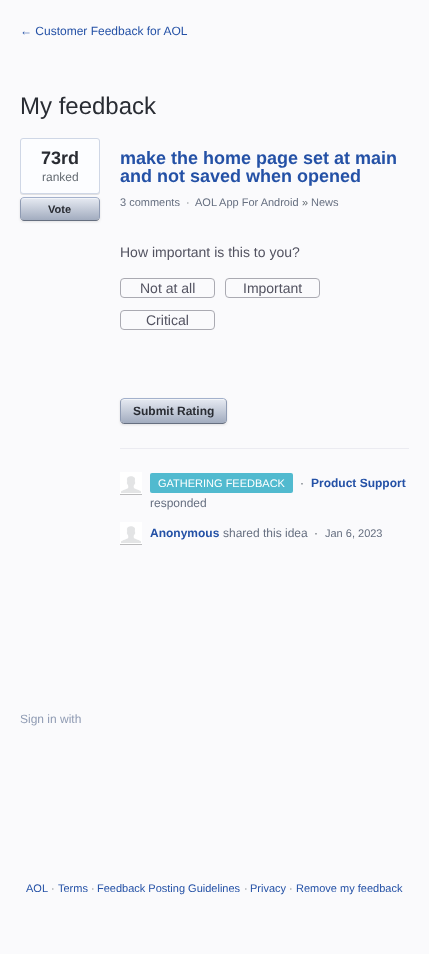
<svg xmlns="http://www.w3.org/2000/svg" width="429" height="954">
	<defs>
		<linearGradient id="g1" gradientUnits="userSpaceOnUse" x1="21" y1="198" x2="21" y2="220"><stop offset="0" stop-color="#E6EAF2" /><stop offset="1" stop-color="#A2ACBF" /></linearGradient>
		<linearGradient id="g2" gradientUnits="userSpaceOnUse" x1="121" y1="399" x2="121" y2="423"><stop offset="0" stop-color="#E6EAF2" /><stop offset="1" stop-color="#A2ACBF" /></linearGradient>
	</defs>
	<rect width="100%" height="100%" fill="#FAFAFC" />
	<text x="20" y="35" font-family="Liberation Sans" font-size="12" fill="#2451A6">← Customer Feedback for AOL</text>
	<text x="20" y="114" font-family="Liberation Sans" font-size="24" fill="#292C33">My feedback</text>
	<rect x="20" y="139" width="80" height="56" rx="3" fill="#000000" fill-opacity="0.1" filter="blur(0.5px)" />
	<rect x="20.5" y="138.5" width="79" height="55" rx="2.5" fill="#FCFDFF" stroke="#CFD7E6" />
	<text x="41" y="164" font-family="Liberation Sans" font-size="18" font-weight="700" fill="#292C33">73rd</text>
	<text x="42" y="181" font-family="Liberation Sans" font-size="12" fill="#646B72">ranked</text>
	<rect x="20" y="198" width="80" height="24" rx="4" fill="#000000" fill-opacity="0.1" filter="blur(1px)" />
	<rect x="21" y="198" width="78" height="22" rx="3" fill="url(#g1)" />
	<path d="M24 199H96C98 199 99 200 99 202C99 195 88 198 84 198H36C32 198 21 195 21 202C21 200 22 199 24 199Z" fill="#FFFFFF" fill-opacity="0.5" />
	<path d="M21.5 198.5C22 198 23 197.5 24 197.5H96C97 197.5 98 198 98.5 198.5" fill="none" stroke="#A3B1CC" />
	<path d="M98.5 198.5C99 199 99.5 200 99.5 201V217C99.5 218 99 219 98.5 219.5" fill="none" stroke="#8F9BB3" />
	<path d="M98.5 219.5C98 220 97 220.5 96 220.5H24C23 220.5 22 220 21.5 219.5" fill="none" stroke="#666F80" />
	<path d="M21.5 219.5C21 219 20.5 218 20.5 217V201C20.5 200 21 199 21.5 198.5" fill="none" stroke="#8F9BB3" />
	<text x="48" y="213" font-family="Liberation Sans" font-size="11" font-weight="700" fill="#292C33">Vote</text>
	<g font-family="Liberation Sans" font-size="18" font-weight="700" fill="#2451A6">
		<text x="120" y="164">make the home page set at main</text>
		<text x="120" y="182">and not saved when opened</text>
	</g>
	<text x="120" y="206" font-family="Liberation Sans" font-size="11" fill="#666F80">3 comments</text>
	<text x="186" y="206" font-family="Liberation Sans" font-size="11" fill="#646B72">·</text>
	<text x="195" y="206" font-family="Liberation Sans" font-size="11" fill="#666F80">AOL App For Android</text>
	<text x="302" y="206" font-family="Liberation Sans" font-size="11" fill="#646B72">»</text>
	<text x="311" y="206" font-family="Liberation Sans" font-size="11" fill="#666F80">News</text>
	<rect x="120" y="448" width="289" height="1" fill="#EBEBF1" />
	<text x="120" y="257" font-family="Liberation Sans" font-size="14" fill="#525260">How important is this to you?</text>
	<rect x="120.5" y="278.5" width="94" height="19" rx="3.5" fill="none" stroke="#AAAAB2" />
	<text x="140" y="293" font-family="Liberation Sans" font-size="14" fill="#525260">Not at all</text>
	<rect x="225.5" y="278.5" width="94" height="19" rx="3.5" fill="none" stroke="#AAAAB2" />
	<text x="243" y="293" font-family="Liberation Sans" font-size="14" fill="#525260">Important</text>
	<rect x="120.5" y="310.5" width="94" height="19" rx="3.5" fill="none" stroke="#AAAAB2" />
	<text x="146" y="325" font-family="Liberation Sans" font-size="14" fill="#525260">Critical</text>
	<rect x="120" y="399" width="107" height="26" rx="4" fill="#000000" fill-opacity="0.1" filter="blur(1px)" />
	<rect x="121" y="399" width="105" height="24" rx="3" fill="url(#g2)" />
	<path d="M124 400H223C225 400 226 401 226 403C226 395 209 399 206 399H140C138 399 121 395 121 403C121 401 122 400 124 400Z" fill="#FFFFFF" fill-opacity="0.5" />
	<path d="M121.5 399.5L124 398.5H223.5L225.5 399.5" fill="none" stroke="#A3B1CC" />
	<path d="M225.5 399.5C226 400 226.5 401 226.5 402V420C226.5 421 226 422 225.5 422.5" fill="none" stroke="#8F9BB3" />
	<path d="M225.5 422.5L223 423.5H123.5L121.5 422.5" fill="none" stroke="#666F80" />
	<path d="M121.5 422.5C121 422 120.5 421 120.5 420V402C120.5 401 121 400 121.5 399.5" fill="none" stroke="#8F9BB3" />
	<text x="133" y="415" font-family="Liberation Sans" font-size="12" font-weight="700" fill="#292C33">Submit Rating</text>
	<rect x="150" y="473" width="143" height="20" rx="2" fill="#51BACF" />
	<text x="158" y="487" font-family="Liberation Sans" font-size="11" fill="#FFFFFF">GATHERING FEEDBACK</text>
	<text x="300" y="487" font-family="Liberation Sans" font-size="12" fill="#646B72">·</text>
	<rect x="120" y="473" width="22" height="22" fill="#000000" fill-opacity="0.25" filter="blur(0.5px)" />
	<rect x="120.5" y="472.5" width="21" height="21" fill="none" stroke="#FFFFFF" />
	<image x="121" y="473" width="20" height="20" href="assets/img1.png" />
	<text x="311" y="487" font-family="Liberation Sans" font-size="12" font-weight="700" fill="#2451A6">Product Support</text>
	<text x="150" y="507" font-family="Liberation Sans" font-size="12" fill="#666F80">responded</text>
	<rect x="120" y="523" width="22" height="22" fill="#000000" fill-opacity="0.25" filter="blur(0.5px)" />
	<rect x="120.5" y="522.5" width="21" height="21" fill="none" stroke="#FFFFFF" />
	<image x="121" y="523" width="20" height="20" href="assets/img2.png" />
	<text x="150" y="537" font-family="Liberation Sans" font-size="12" font-weight="700" fill="#2451A6">Anonymous</text>
	<text x="223" y="537" font-family="Liberation Sans" font-size="12" fill="#666F80">shared this idea</text>
	<text x="314" y="537" font-family="Liberation Sans" font-size="12" fill="#646B72">·</text>
	<text x="325" y="537" font-family="Liberation Sans" font-size="11" fill="#666F80">Jan 6, 2023</text>
	<text x="20" y="723" font-family="Liberation Sans" font-size="12" fill="#8F9BB3">Sign in with</text>
	<text x="26" y="892" font-family="Liberation Sans" font-size="11" fill="#2451A6">AOL</text>
	<text x="51" y="892" font-family="Liberation Sans" font-size="11" fill="#646B72">·</text>
	<text x="58" y="892" font-family="Liberation Sans" font-size="11" fill="#2451A6">Terms</text>
	<text x="91" y="892" font-family="Liberation Sans" font-size="11" fill="#646B72">·</text>
	<text x="97" y="892" font-family="Liberation Sans" font-size="11" fill="#2451A6">Feedback Posting Guidelines</text>
	<text x="244" y="892" font-family="Liberation Sans" font-size="11" fill="#646B72">·</text>
	<text x="250" y="892" font-family="Liberation Sans" font-size="11" fill="#2451A6">Privacy</text>
	<text x="289" y="892" font-family="Liberation Sans" font-size="11" fill="#646B72">·</text>
	<text x="296" y="892" font-family="Liberation Sans" font-size="11" fill="#2451A6">Remove my feedback</text>
</svg>
